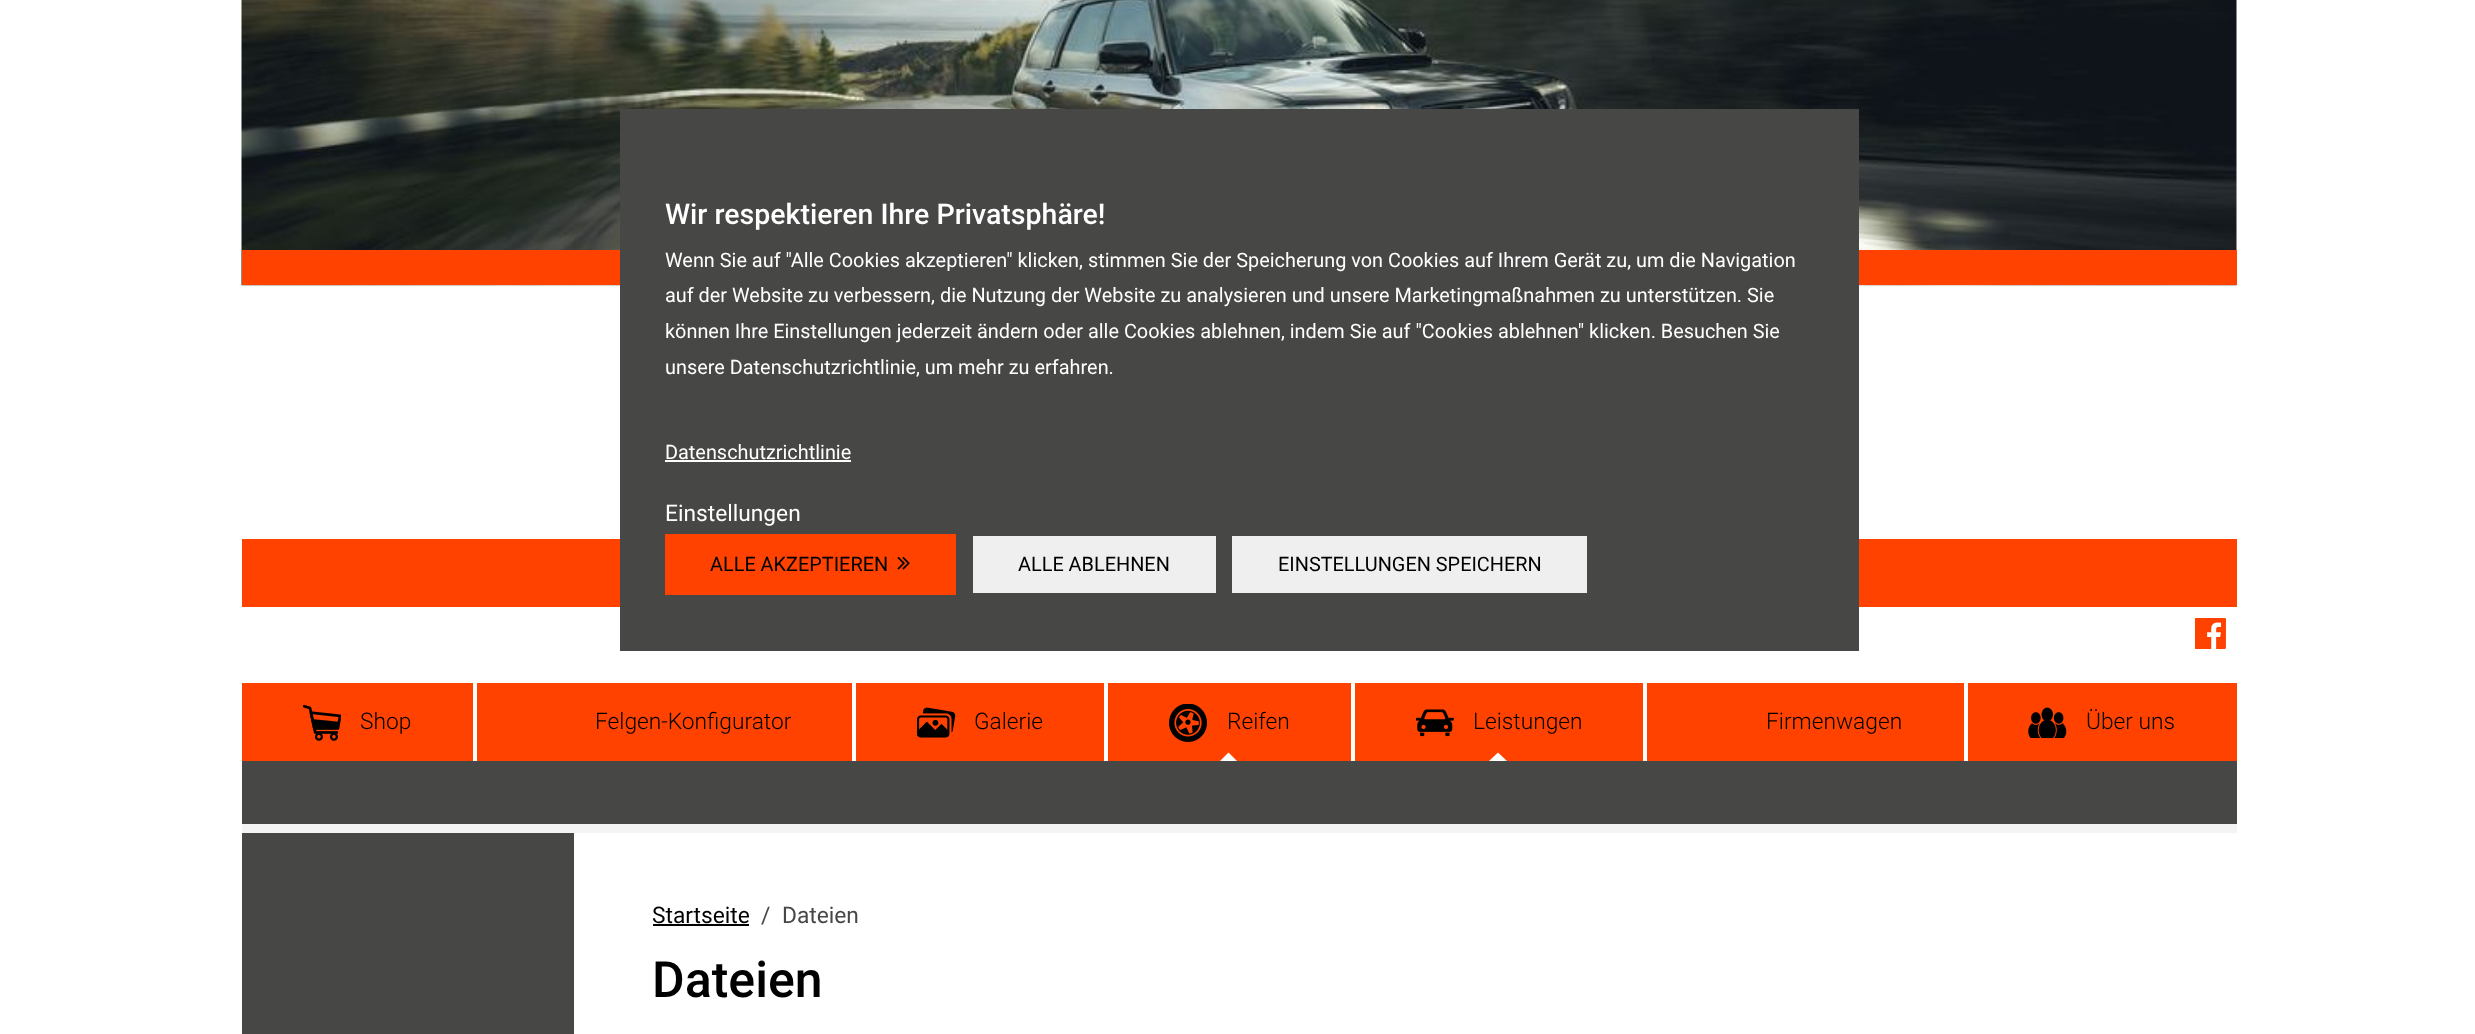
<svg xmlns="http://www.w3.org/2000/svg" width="2475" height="1034">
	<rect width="100%" height="100%" fill="#FFFFFF" />
	<image x="241" y="0" width="1996" height="286" href="assets/img1.png" />
	<rect x="242" y="250" width="1995" height="35" fill="#FF4200" />
	<rect x="242" y="539" width="1995" height="68" fill="#FF4200" />
	<rect x="620" y="109" width="1239" height="542" fill="#474746" />
	<text x="665" y="224" font-family="Roboto" font-size="28.5" font-weight="500" fill="#FFFFFF">Wir respektieren Ihre Privatsphäre!</text>
	<g font-family="Roboto" font-size="19.9" fill="#FFFFFF">
		<text x="665" y="267">Wenn Sie auf "Alle Cookies akzeptieren" klicken, stimmen Sie der Speicherung von Cookies auf Ihrem Gerät zu, um die Navigation</text>
		<text x="665" y="302">auf der Website zu verbessern, die Nutzung der Website zu analysieren und unsere Marketingmaßnahmen zu unterstützen. Sie</text>
		<text x="665" y="338">können Ihre Einstellungen jederzeit ändern oder alle Cookies ablehnen, indem Sie auf "Cookies ablehnen" klicken. Besuchen Sie</text>
		<text x="665" y="374">unsere Datenschutzrichtlinie, um mehr zu erfahren.</text>
		<text x="665" y="459">Datenschutzrichtlinie</text>
	</g>
	<rect x="665" y="460" width="186" height="2" fill="#FFFFFF" />
	<text x="665" y="521" font-family="Roboto" font-size="22.75" fill="#FFFFFF">Einstellungen</text>
	<rect x="665" y="534" width="291" height="61" fill="#FF4200" />
	<text x="710" y="571" font-family="Roboto" font-size="19.9" fill="#000000">ALLE AKZEPTIEREN</text>
	<image x="897" y="556" width="13" height="14" href="assets/img2.png" />
	<rect x="973" y="536" width="243" height="57" fill="#EFEFEF" />
	<text x="1018" y="571" font-family="Roboto" font-size="19.9" fill="#000000">ALLE ABLEHNEN</text>
	<rect x="1232" y="536" width="355" height="57" fill="#EFEFEF" />
	<text x="1278" y="571" font-family="Roboto" font-size="19.9" fill="#000000">EINSTELLUNGEN SPEICHERN</text>
	<image x="2195" y="618" width="31" height="31" href="assets/img3.png" />
	<rect x="242" y="683" width="1995" height="78" fill="#FF4200" />
	<rect x="473" y="683" width="4" height="78" fill="#FFFFFF" />
	<image x="303" y="704" width="38" height="37" href="assets/img4.png" />
	<text x="360" y="729" font-family="Roboto" font-size="22.75" font-weight="300" fill="#000000">Shop</text>
	<rect x="852" y="683" width="4" height="78" fill="#FFFFFF" />
	<text x="595" y="729" font-family="Roboto" font-size="22.75" font-weight="300" fill="#000000">Felgen-Konfigurator</text>
	<rect x="1104" y="683" width="4" height="78" fill="#FFFFFF" />
	<image x="917" y="707" width="39" height="31" href="assets/img5.png" />
	<text x="974" y="729" font-family="Roboto" font-size="22.75" font-weight="300" fill="#000000">Galerie</text>
	<rect x="1351" y="683" width="4" height="78" fill="#FFFFFF" />
	<image x="1169" y="704" width="38" height="38" href="assets/img6.png" />
	<text x="1227" y="729" font-family="Roboto" font-size="22.75" font-weight="300" fill="#000000">Reifen</text>
	<path d="M1237 761H1220L1228.5 752.5Z" fill="#FFFFFF" />
	<rect x="1643" y="683" width="4" height="78" fill="#FFFFFF" />
	<image x="1416" y="709" width="38" height="28" href="assets/img7.png" />
	<text x="1473" y="729" font-family="Roboto" font-size="22.75" font-weight="300" fill="#000000">Leistungen</text>
	<path d="M1507 761H1489L1498 752.5Z" fill="#FFFFFF" />
	<rect x="1964" y="683" width="4" height="78" fill="#FFFFFF" />
	<text x="1766" y="729" font-family="Roboto" font-size="22.75" font-weight="300" fill="#000000">Firmenwagen</text>
	<image x="2028" y="707" width="39" height="31" href="assets/img8.png" />
	<text x="2086" y="729" font-family="Roboto" font-size="22.75" font-weight="300" fill="#000000">Über uns</text>
	<rect x="242" y="761" width="1995" height="63" fill="#474746" />
	<rect x="242" y="824" width="1995" height="9" fill="#F4F4F4" />
	<rect x="242" y="833" width="332" height="201" fill="#474746" />
	<text x="652" y="923" font-family="Roboto" font-size="22.75" fill="#000000">Startseite</text>
	<rect x="653" y="924" width="96" height="2" fill="#000000" />
	<g font-family="Roboto" font-size="22.75" fill="#474747">
		<text x="761" y="923">/</text>
		<text x="782" y="923">Dateien</text>
	</g>
	<text x="652" y="997" font-family="Roboto" font-size="50" font-weight="500" fill="#000000">Dateien</text>
</svg>
